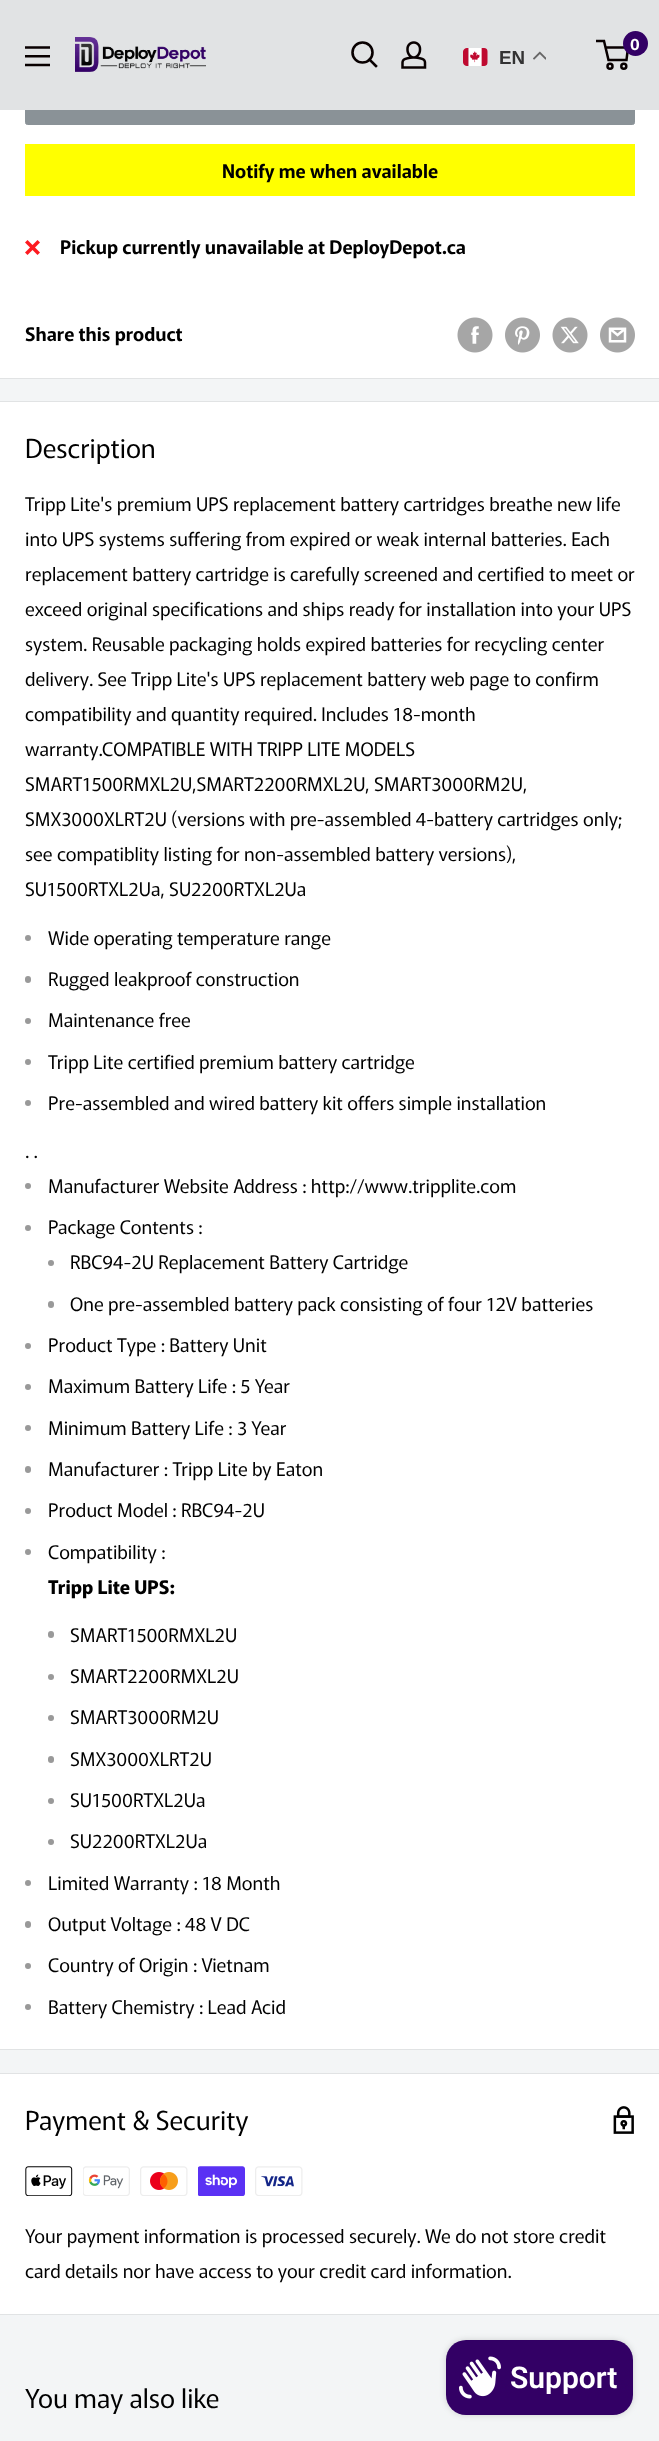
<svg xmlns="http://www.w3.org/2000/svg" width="659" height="2441">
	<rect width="100%" height="100%" fill="#F3F5F6" />
	<rect x="0" y="110" width="659" height="268" fill="#FFFFFF" />
	<rect x="25.5" y="65.5" width="609" height="59" rx="2" fill="#8A9297" stroke="#8A9297" />
	<rect x="0" y="0" width="659" height="110" fill="#E1E3E4" />
	<image x="25" y="46" width="25" height="21" href="assets/img1.png" />
	<image x="75" y="37" width="131" height="35" href="assets/img2.png" />
	<path d="M376 66L369.5 59.5" fill="none" stroke="#080000" stroke-width="2.6" stroke-linecap="square" />
	<circle cx="362.5" cy="52.5" r="10" fill="none" stroke="#080000" stroke-width="2.6" />
	<image x="401" y="41" width="26" height="28" href="assets/img3.png" />
	<image x="463" y="48" width="25" height="18" href="assets/img4.png" />
	<text x="499" y="64" font-family="Liberation Sans" font-size="18.75" font-weight="700" fill="#333333">EN</text>
	<image x="533" y="51" width="13" height="9" href="assets/img5.png" />
	<circle cx="610" cy="66.2" r="2.5" fill="none" stroke="#080000" stroke-width="2.5" />
	<circle cx="623.8" cy="66.2" r="2.5" fill="none" stroke="#080000" stroke-width="2.5" />
	<path d="M605.5 47.5H628L626.5 60H608.5L604 41H596" fill="none" stroke="#080000" stroke-width="2.5" />
	<circle cx="635.5" cy="43.5" r="12.5" fill="#330065" />
	<text x="630" y="50" font-family="Murecho" font-size="16" font-weight="600" fill="#FFFFFF">0</text>
	<rect x="0" y="378" width="659" height="1" fill="#E1E3E4" />
	<rect x="25" y="144" width="610" height="52" fill="#FFFF00" />
	<text x="222" y="178" font-family="Murecho" font-size="18.75" font-weight="600" fill="#000000">Notify me when available</text>
	<image x="25" y="240" width="15" height="15" href="assets/img6.png" />
	<g font-family="Murecho" font-size="18.75" font-weight="600" fill="#000000">
		<text x="60" y="254">Pickup currently unavailable at DeployDepot.ca</text>
		<text x="25" y="341">Share this product</text>
	</g>
	<image x="457" y="317" width="36" height="36" href="assets/img7.png" />
	<image x="505" y="317" width="35" height="36" href="assets/img8.png" />
	<image x="552" y="317" width="36" height="36" href="assets/img9.png" />
	<image x="600" y="317" width="35" height="36" href="assets/img10.png" />
	<rect x="0" y="402" width="659" height="1647" fill="#FFFFFF" />
	<rect x="0" y="401" width="659" height="1" fill="#E1E3E4" />
	<rect x="0" y="2049" width="659" height="1" fill="#E1E3E4" />
	<text x="25" y="458" font-family="Murecho" font-size="26.25" fill="#000000">Description</text>
	<g font-family="Murecho" font-size="18.75" fill="#000000">
		<text x="25" y="511">Tripp Lite's premium UPS replacement battery cartridges breathe new life</text>
		<text x="25" y="546">into UPS systems suffering from expired or weak internal batteries. Each</text>
		<text x="25" y="581">replacement battery cartridge is carefully screened and certified to meet or</text>
		<text x="25" y="616">exceed original specifications and ships ready for installation into your UPS</text>
		<text x="25" y="651">system. Reusable packaging holds expired batteries for recycling center</text>
		<text x="25" y="686">delivery. See Tripp Lite's UPS replacement battery web page to confirm</text>
		<text x="25" y="721">compatibility and quantity required. Includes 18-month</text>
		<text x="25" y="756">warranty.COMPATIBLE WITH TRIPP LITE MODELS</text>
		<text x="25" y="791">SMART1500RMXL2U,SMART2200RMXL2U, SMART3000RM2U,</text>
		<text x="25" y="826">SMX3000XLRT2U (versions with pre-assembled 4-battery cartridges only;</text>
		<text x="25" y="861">see compatiblity listing for non-assembled battery versions),</text>
		<text x="25" y="896">SU1500RTXL2Ua, SU2200RTXL2Ua</text>
	</g>
	<circle cx="28" cy="938" r="3" fill="#999999" />
	<text x="48" y="945" font-family="Murecho" font-size="18.75" fill="#000000">Wide operating temperature range</text>
	<rect x="25" y="976" width="6" height="7" rx="3" fill="#999999" />
	<text x="48" y="986" font-family="Murecho" font-size="18.75" fill="#000000">Rugged leakproof construction</text>
	<circle cx="28" cy="1021" r="3" fill="#999999" />
	<text x="48" y="1027" font-family="Murecho" font-size="18.75" fill="#000000">Maintenance free</text>
	<circle cx="28" cy="1062" r="3" fill="#999999" />
	<text x="48" y="1069" font-family="Murecho" font-size="18.75" fill="#000000">Tripp Lite certified premium battery cartridge</text>
	<circle cx="28" cy="1103" r="3" fill="#999999" />
	<g font-family="Murecho" font-size="18.75" fill="#000000">
		<text x="48" y="1110">Pre-assembled and wired battery kit offers simple installation</text>
		<text x="25" y="1158">. .</text>
	</g>
	<circle cx="28" cy="1186" r="3" fill="#999999" />
	<text x="48" y="1193" font-family="Murecho" font-size="18.75" fill="#000000">Manufacturer Website Address : http://www.tripplite.com</text>
	<circle cx="28" cy="1228" r="3" fill="#999999" />
	<text x="48" y="1234" font-family="Murecho" font-size="18.75" fill="#000000">Package Contents :</text>
	<circle cx="51" cy="1263" r="3" fill="#999999" />
	<text x="70" y="1269" font-family="Murecho" font-size="18.75" fill="#000000">RBC94-2U Replacement Battery Cartridge</text>
	<rect x="48" y="1301" width="6" height="7" rx="3" fill="#999999" />
	<text x="70" y="1311" font-family="Murecho" font-size="18.75" fill="#000000">One pre-assembled battery pack consisting of four 12V batteries</text>
	<circle cx="28" cy="1346" r="3" fill="#999999" />
	<text x="48" y="1352" font-family="Murecho" font-size="18.75" fill="#000000">Product Type : Battery Unit</text>
	<circle cx="28" cy="1387" r="3" fill="#999999" />
	<text x="48" y="1393" font-family="Murecho" font-size="18.75" fill="#000000">Maximum Battery Life : 5 Year</text>
	<circle cx="28" cy="1428" r="3" fill="#999999" />
	<text x="48" y="1435" font-family="Murecho" font-size="18.75" fill="#000000">Minimum Battery Life : 3 Year</text>
	<rect x="25" y="1466" width="6" height="7" rx="3" fill="#999999" />
	<text x="48" y="1476" font-family="Murecho" font-size="18.75" fill="#000000">Manufacturer : Tripp Lite by Eaton</text>
	<circle cx="28" cy="1511" r="3" fill="#999999" />
	<text x="48" y="1517" font-family="Murecho" font-size="18.75" fill="#000000">Product Model : RBC94-2U</text>
	<circle cx="28" cy="1552" r="3" fill="#999999" />
	<text x="48" y="1559" font-family="Murecho" font-size="18.75" fill="#000000">Compatibility :</text>
	<text x="48" y="1594" font-family="Murecho" font-size="18.75" font-weight="700" fill="#000000">Tripp Lite UPS:</text>
	<rect x="48" y="1631" width="6" height="7" rx="3" fill="#999999" />
	<text x="70" y="1642" font-family="Murecho" font-size="18.75" fill="#000000">SMART1500RMXL2U</text>
	<circle cx="51" cy="1677" r="3" fill="#999999" />
	<text x="70" y="1683" font-family="Murecho" font-size="18.75" fill="#000000">SMART2200RMXL2U</text>
	<circle cx="51" cy="1718" r="3" fill="#999999" />
	<text x="70" y="1724" font-family="Murecho" font-size="18.75" fill="#000000">SMART3000RM2U</text>
	<rect x="48" y="1756" width="6" height="7" rx="3" fill="#999999" />
	<text x="70" y="1766" font-family="Murecho" font-size="18.75" fill="#000000">SMX3000XLRT2U</text>
	<circle cx="51" cy="1801" r="3" fill="#999999" />
	<text x="70" y="1807" font-family="Murecho" font-size="18.75" fill="#000000">SU1500RTXL2Ua</text>
	<circle cx="51" cy="1842" r="3" fill="#999999" />
	<text x="70" y="1848" font-family="Murecho" font-size="18.75" fill="#000000">SU2200RTXL2Ua</text>
	<circle cx="28" cy="1883" r="3" fill="#999999" />
	<text x="48" y="1890" font-family="Murecho" font-size="18.75" fill="#000000">Limited Warranty : 18 Month</text>
	<rect x="25" y="1921" width="6" height="7" rx="3" fill="#999999" />
	<text x="48" y="1931" font-family="Murecho" font-size="18.75" fill="#000000">Output Voltage : 48 V DC</text>
	<circle cx="28" cy="1966" r="3" fill="#999999" />
	<text x="48" y="1972" font-family="Murecho" font-size="18.75" fill="#000000">Country of Origin : Vietnam</text>
	<circle cx="28" cy="2007" r="3" fill="#999999" />
	<text x="48" y="2014" font-family="Murecho" font-size="18.75" fill="#000000">Battery Chemistry : Lead Acid</text>
	<rect x="0" y="2074" width="659" height="240" fill="#FFFFFF" />
	<rect x="0" y="2073" width="659" height="1" fill="#E1E3E4" />
	<rect x="0" y="2314" width="659" height="1" fill="#E1E3E4" />
	<text x="25" y="2130" font-family="Murecho" font-size="26.25" fill="#000000">Payment &amp; Security</text>
	<image x="613" y="2106" width="21" height="28" href="assets/img11.png" />
	<image x="25" y="2166" width="48" height="30" href="assets/img12.png" />
	<image x="83" y="2166" width="47" height="30" href="assets/img13.png" />
	<image x="140" y="2166" width="48" height="30" href="assets/img14.png" />
	<image x="198" y="2166" width="47" height="30" href="assets/img15.png" />
	<image x="255" y="2166" width="48" height="30" href="assets/img16.png" />
	<g font-family="Murecho" font-size="18.75" fill="#000000">
		<text x="25" y="2243">Your payment information is processed securely. We do not store credit</text>
		<text x="25" y="2278">card details nor have access to your credit card information.</text>
	</g>
	<text x="25" y="2408" font-family="Murecho" font-size="26.25" fill="#000000">You may also like</text>
	<rect x="446" y="2340" width="187" height="75" rx="20" fill="#000000" fill-opacity="0.15" filter="blur(3px)" />
	<rect x="446" y="2340" width="187" height="75" rx="20" fill="#330065" />
	<image x="459" y="2356" width="42" height="43" href="assets/img17.png" />
	<text x="510" y="2388" font-family="Roboto" font-size="30" font-weight="600" fill="#FFFFFF">Support</text>
</svg>
